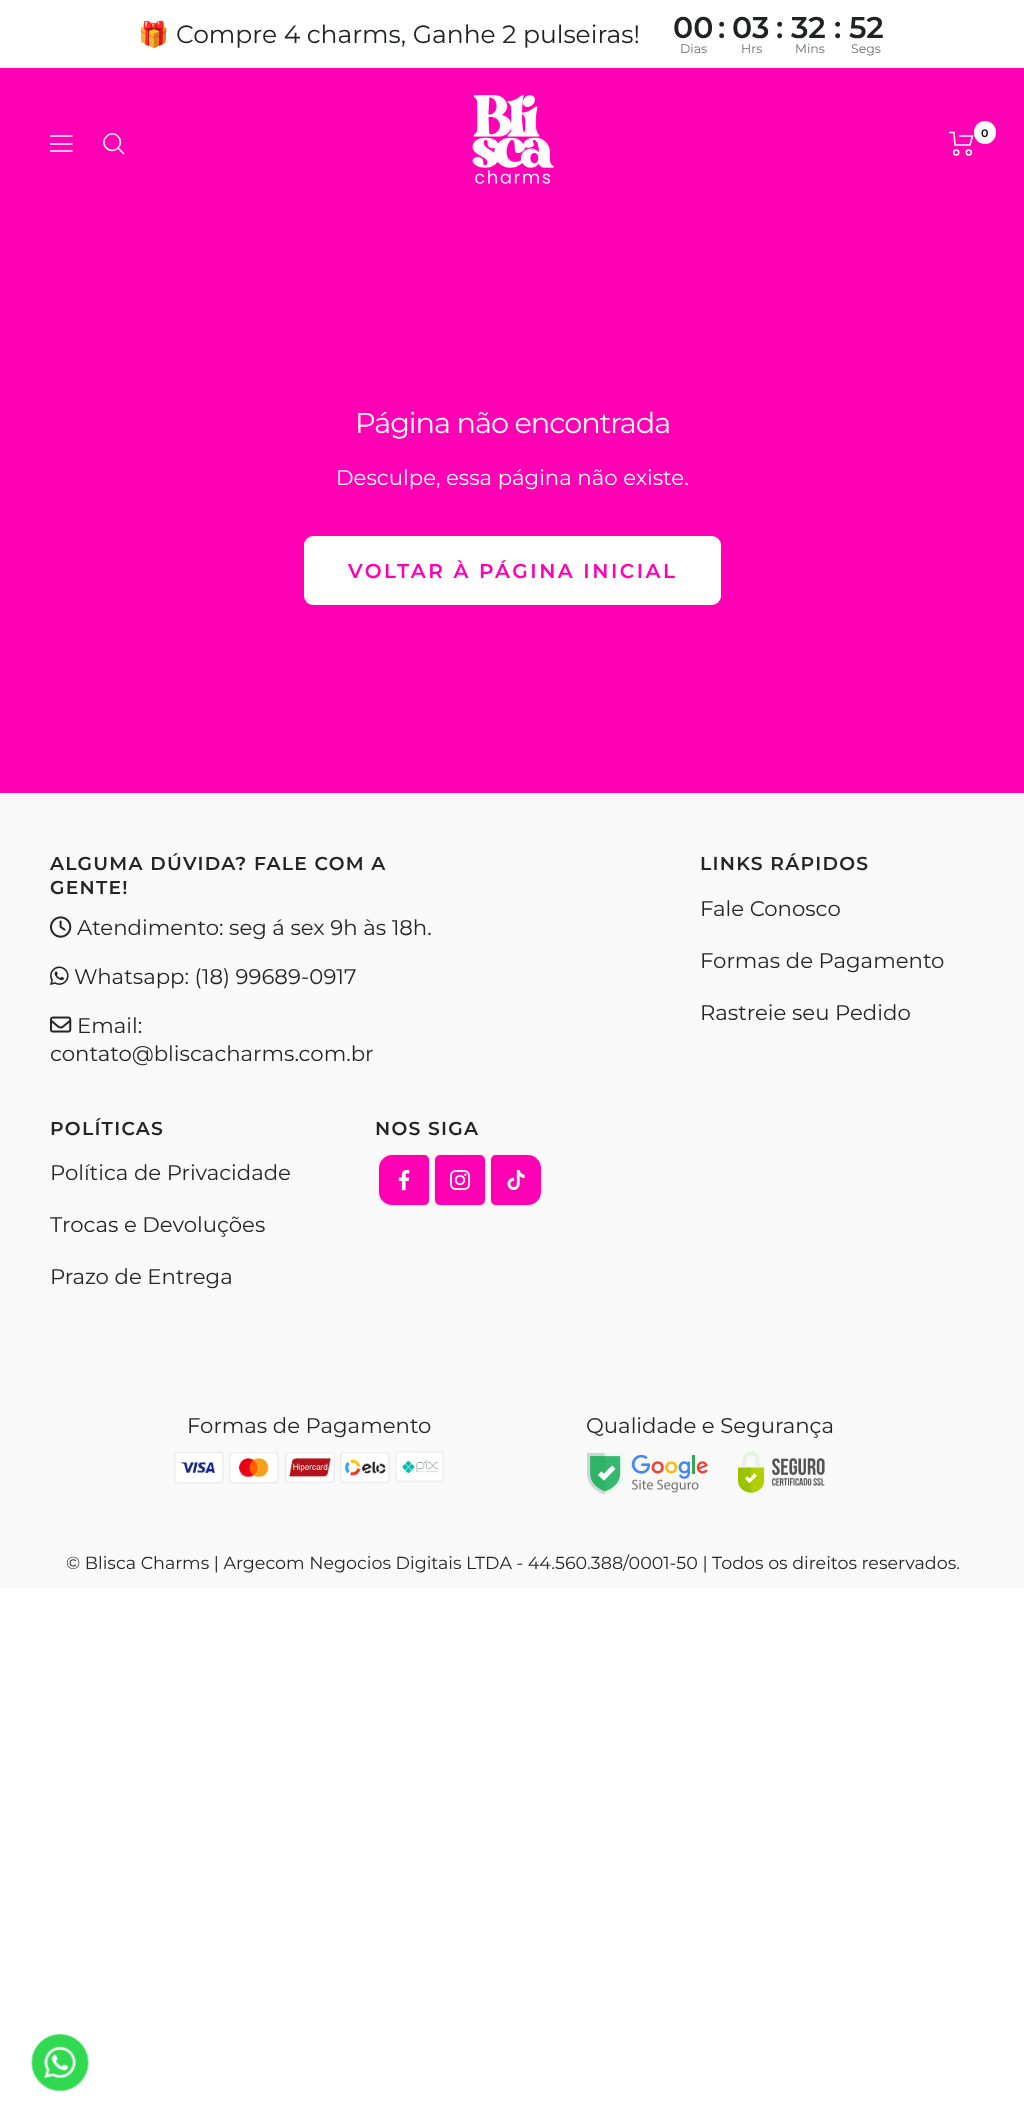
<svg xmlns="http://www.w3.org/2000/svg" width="1024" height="2121">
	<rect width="100%" height="100%" fill="#FFFFFF" />
	<text x="138" y="43" font-family="Noto Color Emoji" font-size="25" fill="#202223">🎁</text>
	<text x="176" y="43" font-family="Montserrat" font-size="25" fill="#202223">Compre 4 charms, Ganhe 2 pulseiras!</text>
	<g font-family="Montserrat" font-size="30" font-weight="600" fill="#202223">
		<text x="673" y="38">00</text>
		<text x="718" y="38">:</text>
		<text x="732" y="38">03</text>
		<text x="776" y="38">:</text>
		<text x="791" y="38">32</text>
		<text x="834" y="38">:</text>
		<text x="849" y="38">52</text>
	</g>
	<g font-family="Montserrat" font-size="12.5" fill="#6D7175">
		<text x="680" y="53">Dias</text>
		<text x="741" y="53">Hrs</text>
		<text x="795" y="53">Mins</text>
		<text x="851" y="53">Segs</text>
	</g>
	<rect x="0" y="68" width="1024" height="725" fill="#FF00B4" />
	<path d="M50 136H72.5M50 151H72.5ZM50 144H72.5Z" fill="none" stroke="#FFFFFF" stroke-width="1.6" />
	<path d="M118 148C125.5 140 114 128.5 106.5 136.5C98.5 144 110 155.5 118 148ZM118 148L124 154" fill="none" stroke="#FFFFFF" stroke-width="1.6" />
	<image x="472" y="95" width="82" height="89" href="assets/img1.png" />
	<path d="M949 132.5H954L955 145H970L972.5 136H959" fill="none" stroke="#FFFFFF" stroke-width="1.6" />
	<circle cx="956.2" cy="152.5" r="2.5" fill="none" stroke="#FFFFFF" stroke-width="1.6" />
	<circle cx="968.8" cy="152.5" r="2.5" fill="none" stroke="#FFFFFF" stroke-width="1.6" />
	<rect x="974" y="121" width="22" height="23" rx="11" fill="#FFFFFF" />
	<text x="981" y="137" font-family="Montserrat" font-size="11" font-weight="600" fill="#000000">0</text>
	<text x="355" y="433" font-family="Montserrat" font-size="28.75" letter-spacing="-1" fill="#FFFFFF">Página não encontrada</text>
	<text x="336" y="485" font-family="Montserrat" font-size="21.25" fill="#FFFFFF">Desculpe, essa página não existe.</text>
	<rect x="304" y="536" width="417" height="69" rx="9" fill="#FFFFFF" />
	<text x="348" y="578" font-family="Montserrat" font-size="20" font-weight="600" letter-spacing="2.5" fill="#FF00B4">VOLTAR À PÁGINA INICIAL</text>
	<rect x="0" y="793" width="1024" height="795" fill="#F9F9F9" />
	<g font-family="Montserrat" font-size="18.75" font-weight="600" letter-spacing="1.25" fill="#262424">
		<text x="50" y="870">ALGUMA DÚVIDA? FALE COM A</text>
		<text x="50" y="894">GENTE!</text>
	</g>
	<image x="50" y="916" width="22" height="22" href="assets/img2.png" />
	<text x="77" y="935" font-family="Montserrat" font-size="21.25" fill="#262424">Atendimento: seg á sex 9h às 18h.</text>
	<image x="50" y="966" width="19" height="19" href="assets/img3.png" />
	<text x="74" y="984" font-family="Montserrat" font-size="21.25" fill="#262424">Whatsapp: (18) 99689-0917</text>
	<image x="50" y="1016" width="22" height="17" href="assets/img4.png" />
	<g font-family="Montserrat" font-size="21.25" fill="#262424">
		<text x="77" y="1033">Email:</text>
		<text x="50" y="1061">contato@bliscacharms.com.br</text>
	</g>
	<text x="700" y="870" font-family="Montserrat" font-size="18.75" font-weight="600" letter-spacing="1.25" fill="#262424">LINKS RÁPIDOS</text>
	<g font-family="Montserrat" font-size="21.25" fill="#262424">
		<text x="700" y="916">Fale Conosco</text>
		<text x="700" y="968">Formas de Pagamento</text>
		<text x="700" y="1020">Rastreie seu Pedido</text>
	</g>
	<text x="50" y="1135" font-family="Montserrat" font-size="18.75" font-weight="600" letter-spacing="1.25" fill="#262424">POLÍTICAS</text>
	<g font-family="Montserrat" font-size="21.25" fill="#262424">
		<text x="50" y="1180">Política de Privacidade</text>
		<text x="50" y="1232">Trocas e Devoluções</text>
		<text x="50" y="1284">Prazo de Entrega</text>
	</g>
	<text x="375" y="1135" font-family="Montserrat" font-size="18.75" font-weight="600" letter-spacing="1.25" fill="#262424">NOS SIGA</text>
	<path d="M392 1154.5H424C427 1154.5 429.5 1157 429.5 1160V1200C429.5 1203 427 1205.5 424 1205.5H392C384.5 1205.5 378.5 1199.5 378.5 1192V1168C378.5 1160.5 384.5 1154.5 392 1154.5Z" fill="none" stroke="#FEEDE4" />
	<path d="M392 1155H424C427 1155 429 1157 429 1160V1200C429 1203 427 1205 424 1205H392C385 1205 379 1199 379 1192V1168C379 1161 385 1155 392 1155Z" fill="#FF00B4" />
	<image x="398" y="1170" width="12" height="21" href="assets/img5.png" />
	<rect x="434.5" y="1154.5" width="51" height="51" rx="5.5" fill="none" stroke="#FEEDE4" />
	<rect x="435" y="1155" width="50" height="50" rx="5" fill="#FF00B4" />
	<image x="450" y="1170" width="20" height="20" href="assets/img6.png" />
	<path d="M496 1154.5H529C536.5 1154.5 542.5 1160.5 542.5 1168V1192C542.5 1199.5 536.5 1205.5 529 1205.5H496C493 1205.5 490.5 1203 490.5 1200V1160C490.5 1157 493 1154.5 496 1154.5Z" fill="none" stroke="#FEEDE4" />
	<path d="M496 1155H528C535 1155 541 1161 541 1168V1192C541 1199 535 1205 528 1205H496C493 1205 491 1203 491 1200V1160C491 1157 493 1155 496 1155Z" fill="#FF00B4" />
	<image x="507" y="1170" width="18" height="20" href="assets/img7.png" />
	<text x="187" y="1433" font-family="Montserrat" font-size="21.25" fill="#262424">Formas de Pagamento</text>
	<image x="174" y="1452" width="50" height="32" href="assets/img8.png" />
	<image x="229" y="1452" width="50" height="32" href="assets/img9.png" />
	<image x="285" y="1452" width="50" height="31" href="assets/img10.png" />
	<image x="340" y="1452" width="50" height="31" href="assets/img11.png" />
	<image x="395" y="1451" width="49" height="31" href="assets/img12.png" />
	<text x="586" y="1433" font-family="Montserrat" font-size="21.25" fill="#262424">Qualidade e Segurança</text>
	<image x="587" y="1452" width="121" height="43" href="assets/img13.png" />
	<image x="738" y="1451" width="87" height="42" href="assets/img14.png" />
	<text x="66" y="1569" font-family="Montserrat" font-size="17.5" fill="#262424">© Blisca Charms | Argecom Negocios Digitais LTDA - 44.560.388/0001-50 | Todos os direitos reservados.</text>
	<image x="31" y="2033" width="58" height="59" href="assets/img15.png" />
</svg>
